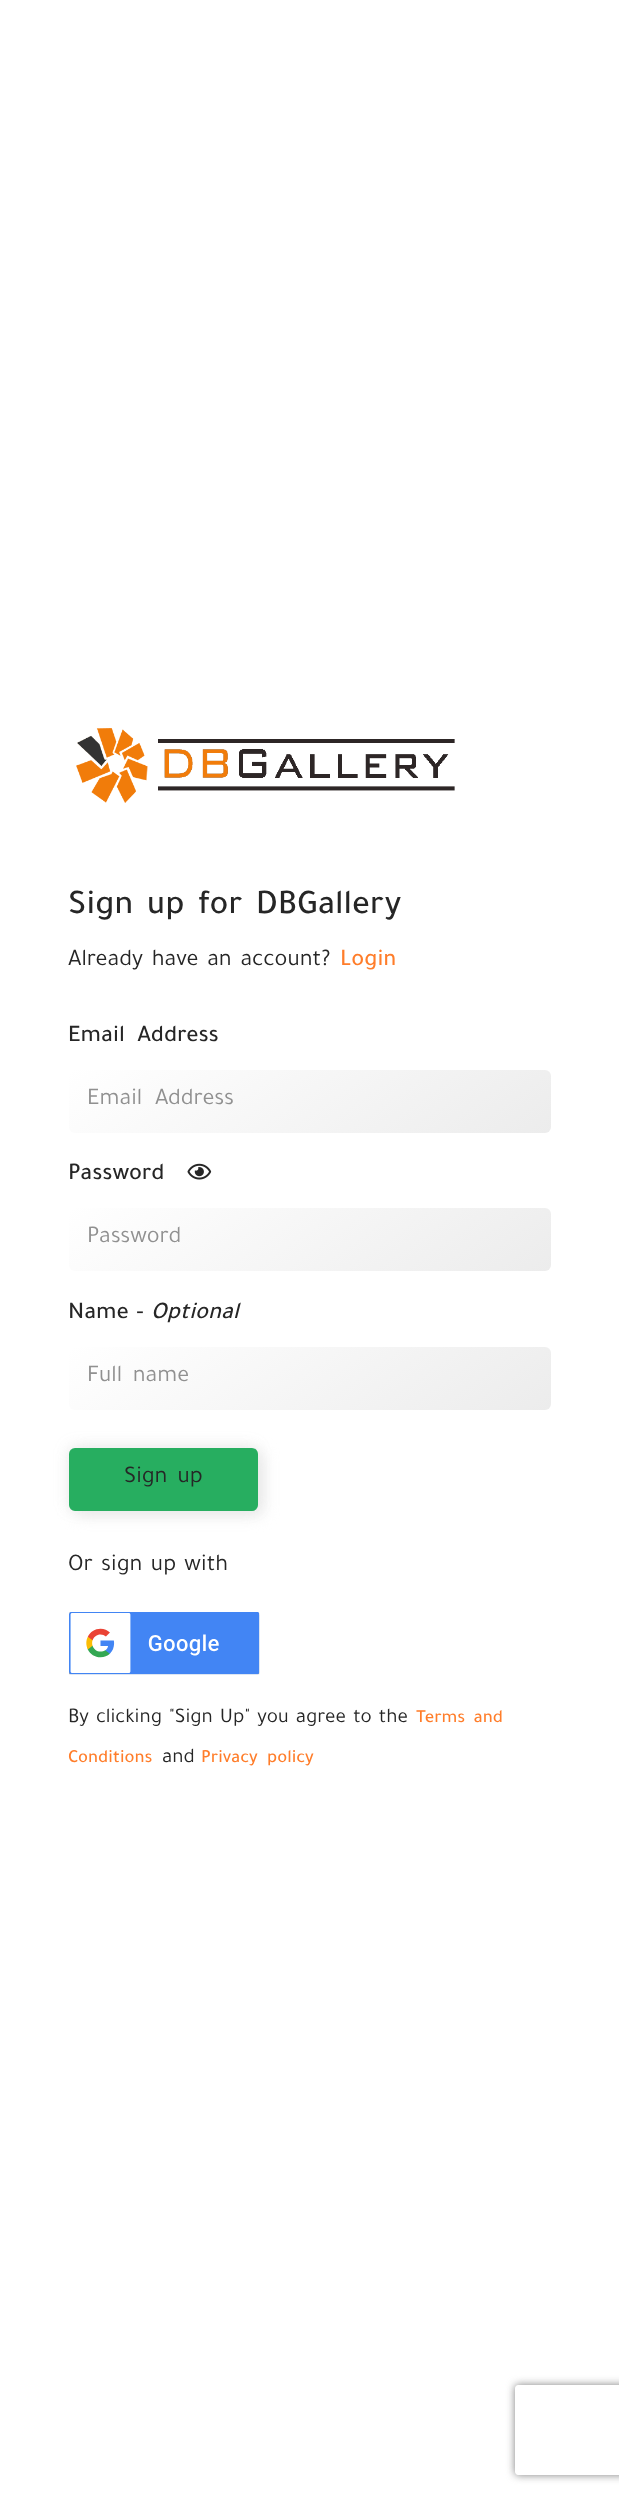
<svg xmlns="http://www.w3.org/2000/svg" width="619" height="2496">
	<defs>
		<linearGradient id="g1" gradientUnits="userSpaceOnUse" x1="216" y1="967" x2="404" y2="1236"><stop offset="0" stop-color="#FFFFFF" /><stop offset="1" stop-color="#ECECEC" /></linearGradient>
		<linearGradient id="g2" gradientUnits="userSpaceOnUse" x1="216" y1="1105" x2="404" y2="1374"><stop offset="0" stop-color="#FFFFFF" /><stop offset="1" stop-color="#ECECEC" /></linearGradient>
		<linearGradient id="g3" gradientUnits="userSpaceOnUse" x1="216" y1="1245" x2="404" y2="1513"><stop offset="0" stop-color="#FFFFFF" /><stop offset="1" stop-color="#ECECEC" /></linearGradient>
		<clipPath id="clip1"><path d="M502 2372H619V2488H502ZM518 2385H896C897.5 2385 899 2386.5 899 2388V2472C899 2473.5 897.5 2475 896 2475H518C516.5 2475 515 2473.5 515 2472V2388C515 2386.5 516.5 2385 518 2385Z" clip-rule="evenodd" /></clipPath>
	</defs>
	<rect width="100%" height="100%" fill="#FFFFFF" />
	<image x="76" y="728" width="379" height="75" href="assets/img1.png" />
	<text x="68" y="913" word-spacing="5" font-family="Tajawal" font-size="35" font-weight="500" fill="#262626">Sign up for DBGallery</text>
	<text x="68" y="965" word-spacing="3" font-family="Tajawal" font-size="24" fill="#262626">Already have an account?</text>
	<text x="340" y="965" font-family="Tajawal" font-size="24" font-weight="500" fill="#FF7D2A">Login</text>
	<text x="68" y="1041" word-spacing="7" font-family="Tajawal" font-size="24" font-weight="500" fill="#262626">Email Address</text>
	<rect x="69" y="1070" width="482" height="63" rx="6" fill="url(#g1)" />
	<text x="87" y="1104" word-spacing="7" font-family="Tajawal" font-size="24" fill="#909090">Email Address</text>
	<text x="68" y="1179" font-family="Tajawal" font-size="24" font-weight="500" fill="#262626">Password</text>
	<image x="187" y="1163" width="25" height="17" href="assets/img2.png" />
	<rect x="69" y="1208" width="482" height="63" rx="6" fill="url(#g2)" />
	<text x="87" y="1242" font-family="Tajawal" font-size="24" fill="#909090">Password</text>
	<text x="68" y="1318" word-spacing="2" font-family="Tajawal" font-size="24" font-weight="500" fill="#262626">Name -</text>
	<text x="151" y="1318" font-family="Tajawal" font-size="24" font-weight="500" font-style="italic" fill="#262626">Optional</text>
	<rect x="69" y="1347" width="482" height="63" rx="6" fill="url(#g3)" />
	<text x="87" y="1381" word-spacing="5" font-family="Tajawal" font-size="24" fill="#909090">Full name</text>
	<rect x="68" y="1446" width="189" height="63" rx="6" fill="#969696" fill-opacity="0.15" filter="blur(7.5px)" />
	<rect x="74" y="1452" width="189" height="63" rx="6" fill="#E4E4E4" fill-opacity="0.9" filter="blur(7.5px)" />
	<rect x="69" y="1448" width="189" height="63" rx="6" fill="#27AE60" />
	<g font-family="Tajawal" font-size="24" fill="#262626">
		<text x="124" y="1482" word-spacing="4">Sign up</text>
		<text x="68" y="1570" word-spacing="2.5">Or sign up with</text>
	</g>
	<image x="69" y="1612" width="191" height="63" href="assets/img3.png" />
	<text x="68" y="1722" word-spacing="2" font-family="Tajawal" font-size="21" fill="#262626">By clicking "Sign Up" you agree to the</text>
	<g font-family="Tajawal" font-size="18.5" font-weight="500" fill="#FF7D2A">
		<text x="416" y="1722" word-spacing="4">Terms and</text>
		<text x="68" y="1762">Conditions</text>
	</g>
	<text x="162" y="1762" font-family="Tajawal" font-size="21" fill="#262626">and</text>
	<text x="201" y="1762" word-spacing="5" font-family="Tajawal" font-size="18.5" font-weight="500" fill="#FF7D2A">Privacy policy</text>
	<g clip-path="url(#clip1)">
		<rect x="515" y="2385" width="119" height="90" rx="3" fill="#808080" filter="blur(4px)" />
	</g>
</svg>
